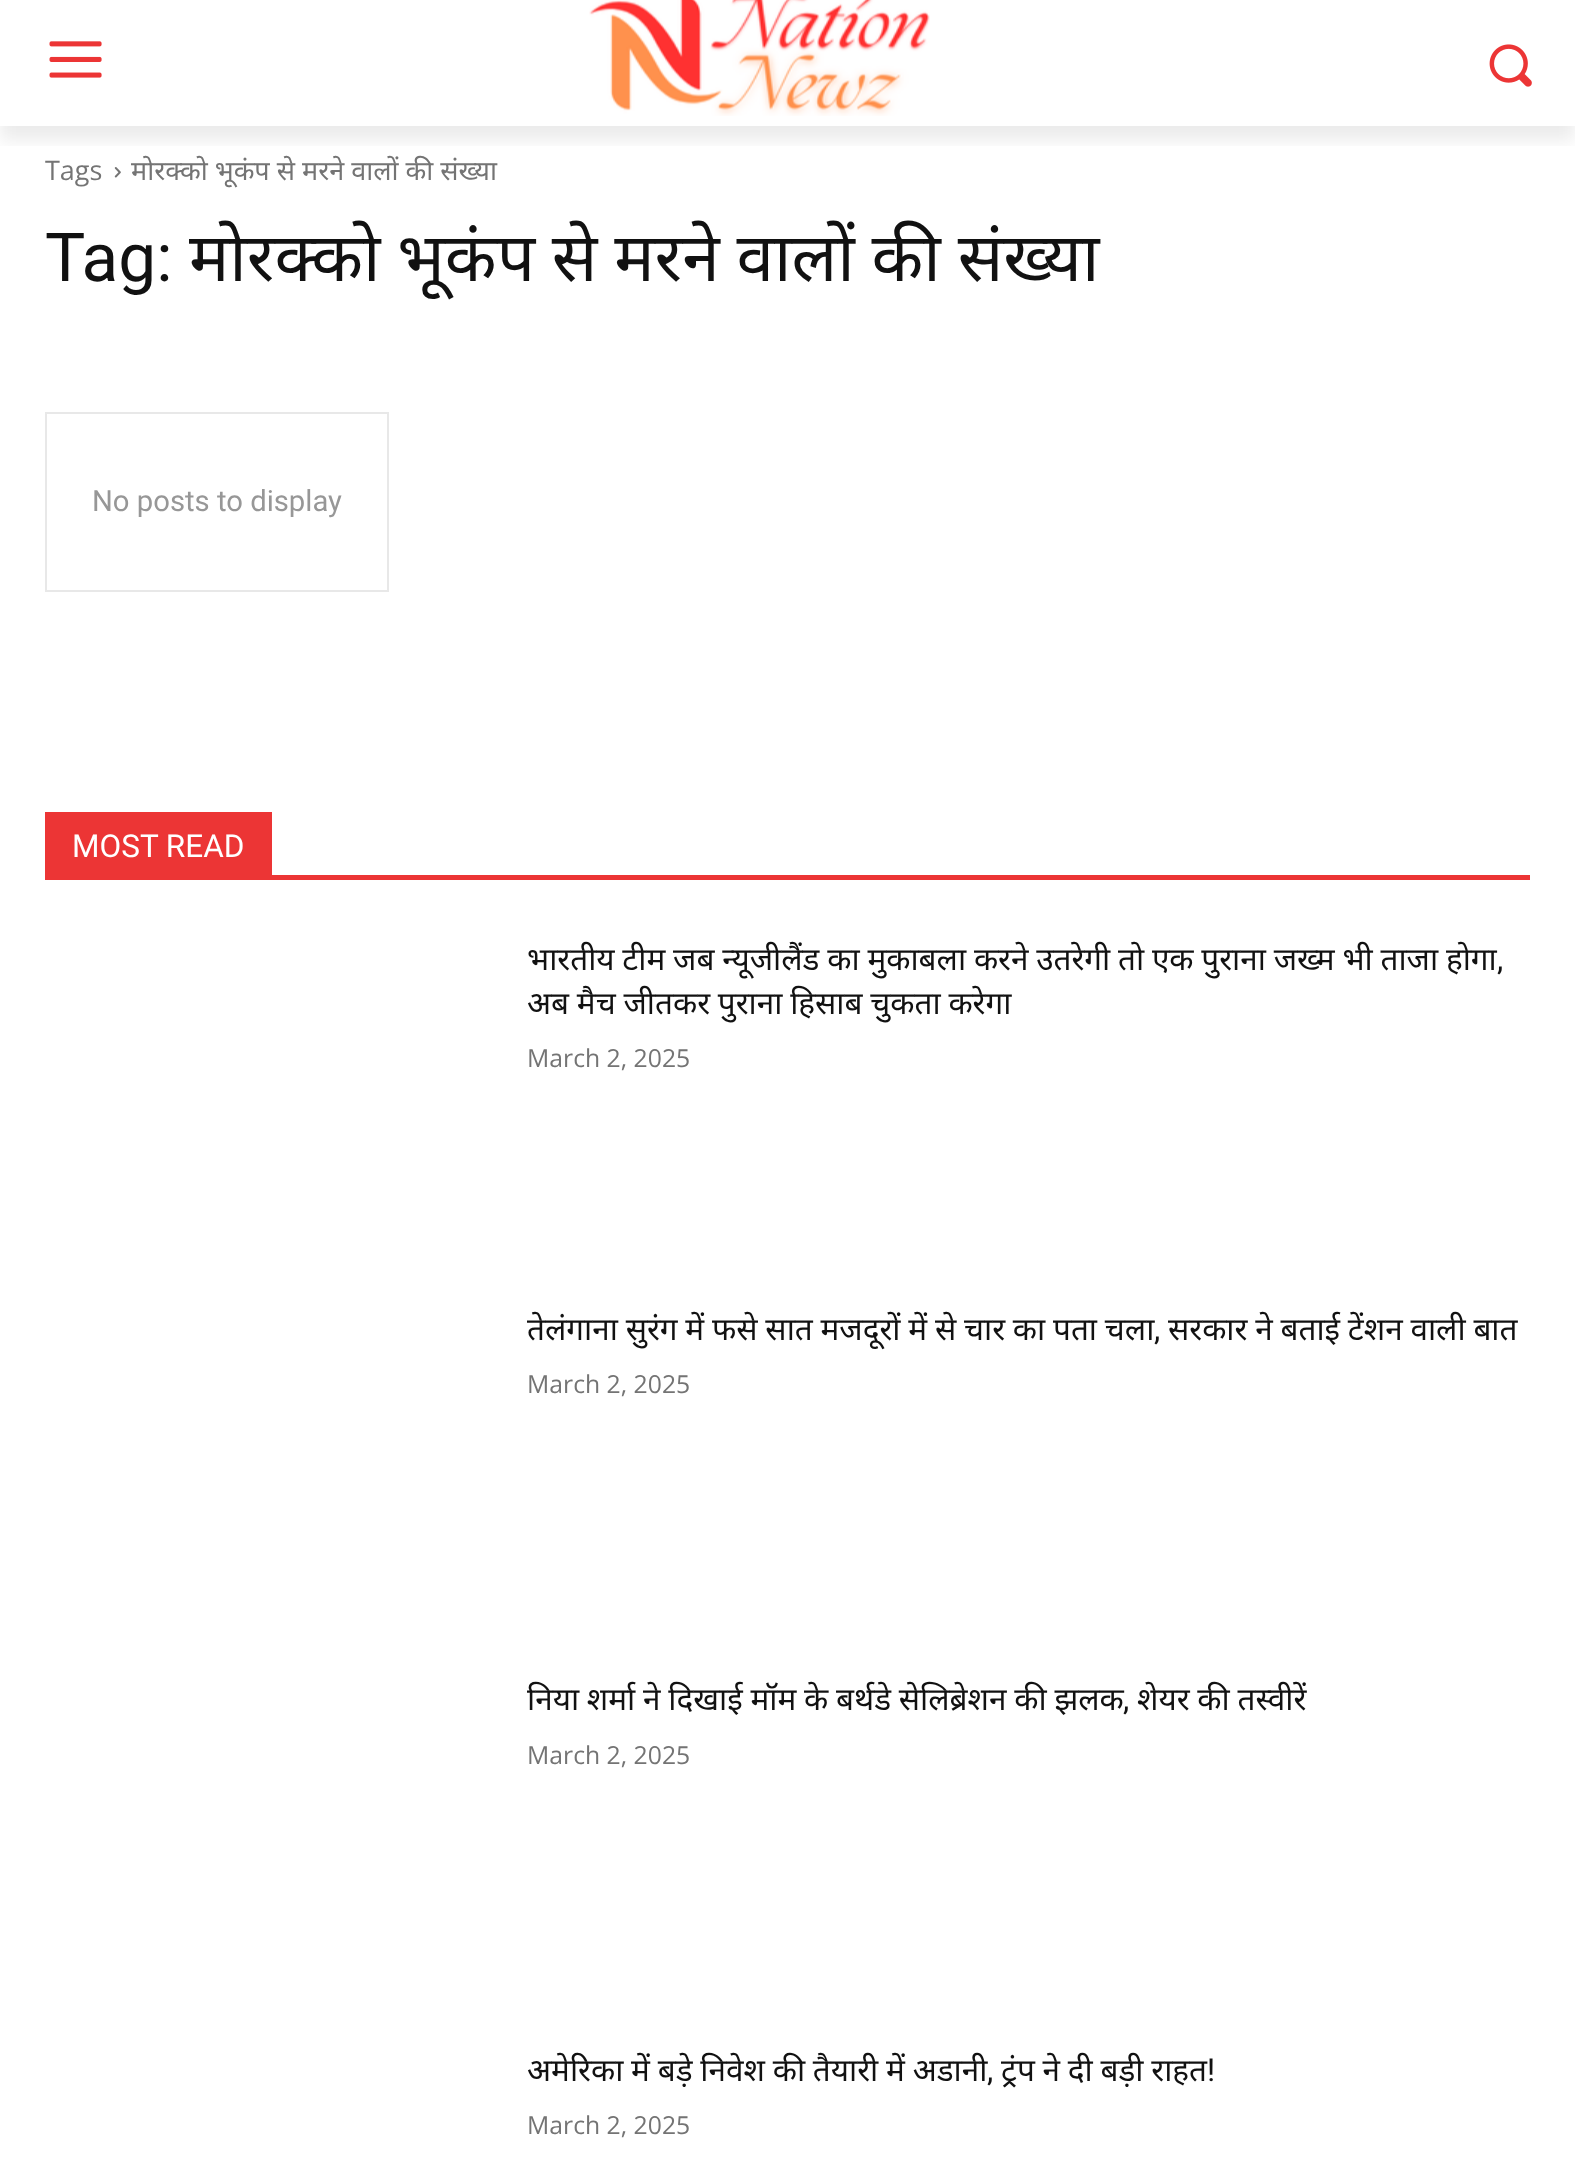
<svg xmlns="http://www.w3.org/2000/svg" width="1575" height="2167">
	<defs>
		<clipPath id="clip1"><rect x="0" y="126" width="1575" height="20" /></clipPath>
	</defs>
	<rect width="100%" height="100%" fill="#FFFFFF" />
	<image x="49" y="41" width="53" height="37" href="assets/img1.png" />
	<image x="589" y="0" width="341" height="116" href="assets/img2.png" />
	<image x="1489" y="44" width="43" height="43" href="assets/img3.png" />
	<image x="114" y="167" width="7" height="11" href="assets/img4.png" />
	<g clip-path="url(#clip1)">
		<rect x="0" y="14" width="1575" height="126" fill="#000000" fill-opacity="0.08" filter="blur(9px)" />
	</g>
	<text x="45" y="180" font-family="Open Sans" font-size="27" fill="#747474">Tags</text>
	<text x="131" y="180" font-family="Noto Sans" font-size="27" fill="#747474">मोरक्को भूकंप से मरने वालों की संख्या</text>
	<text x="45" y="281" font-family="Roboto" font-size="67.5" fill="#111111">Tag:</text>
	<text x="189" y="281" word-spacing="-0.75" font-family="Noto Sans" font-size="67.5" fill="#111111">मोरक्को भूकंप से मरने वालों की संख्या</text>
	<rect x="46" y="413" width="342" height="178" fill="none" stroke="#E8E8E8" stroke-width="2" />
	<text x="92" y="511" font-family="Roboto" font-size="29.25" fill="#979797">No posts to display</text>
	<rect x="45" y="875" width="1485" height="5" fill="#EC3535" />
	<rect x="45" y="812" width="227" height="63" fill="#EC3535" />
	<text x="72" y="857" font-family="Roboto" font-size="31.5" fill="#FFFFFF">MOST READ</text>
	<text x="527" y="970" word-spacing="-0.4" font-family="Noto Sans" font-size="31.5" fill="#111111">भारतीय टीम जब न्यूजीलैंड का मुकाबला करने उतरेगी तो एक पुराना जख्म भी ताजा होगा</text>
	<text x="1497" y="970" font-family="Roboto" font-size="31.5" fill="#111111">,</text>
	<text x="527" y="1014" word-spacing="-0.4" font-family="Noto Sans" font-size="31.5" fill="#111111">अब मैच जीतकर पुराना हिसाब चुकता करेगा</text>
	<text x="527" y="1067" font-family="Open Sans" font-size="24.75" fill="#747474">March 2, 2025</text>
	<text x="527" y="1340" word-spacing="-0.4" font-family="Noto Sans" font-size="31.5" fill="#111111">तेलंगाना सुरंग में फसे सात मजदूरों में से चार का पता चला</text>
	<text x="1154" y="1340" font-family="Roboto" font-size="31.5" fill="#111111">,</text>
	<text x="1168" y="1340" word-spacing="-0.4" font-family="Noto Sans" font-size="31.5" fill="#111111">सरकार ने बताई टेंशन वाली बात</text>
	<text x="527" y="1393" font-family="Open Sans" font-size="24.75" fill="#747474">March 2, 2025</text>
	<text x="527" y="1710" word-spacing="-0.4" font-family="Noto Sans" font-size="31.5" fill="#111111">निया शर्मा ने दिखाई मॉम के बर्थडे सेलिब्रेशन की झलक</text>
	<text x="1123" y="1710" font-family="Roboto" font-size="31.5" fill="#111111">,</text>
	<text x="1137" y="1710" word-spacing="-0.4" font-family="Noto Sans" font-size="31.5" fill="#111111">शेयर की तस्वीरें</text>
	<text x="527" y="1764" font-family="Open Sans" font-size="24.75" fill="#747474">March 2, 2025</text>
	<text x="527" y="2081" word-spacing="-0.4" font-family="Noto Sans" font-size="31.5" fill="#111111">अमेरिका में बड़े निवेश की तैयारी में अडानी</text>
	<text x="987" y="2081" font-family="Roboto" font-size="31.5" fill="#111111">,</text>
	<text x="1001" y="2081" word-spacing="-0.4" font-family="Noto Sans" font-size="31.5" fill="#111111">ट्रंप ने दी बड़ी राहत</text>
	<text x="1207" y="2081" font-family="Roboto" font-size="31.5" fill="#111111">!</text>
	<text x="527" y="2134" font-family="Open Sans" font-size="24.75" fill="#747474">March 2, 2025</text>
</svg>
